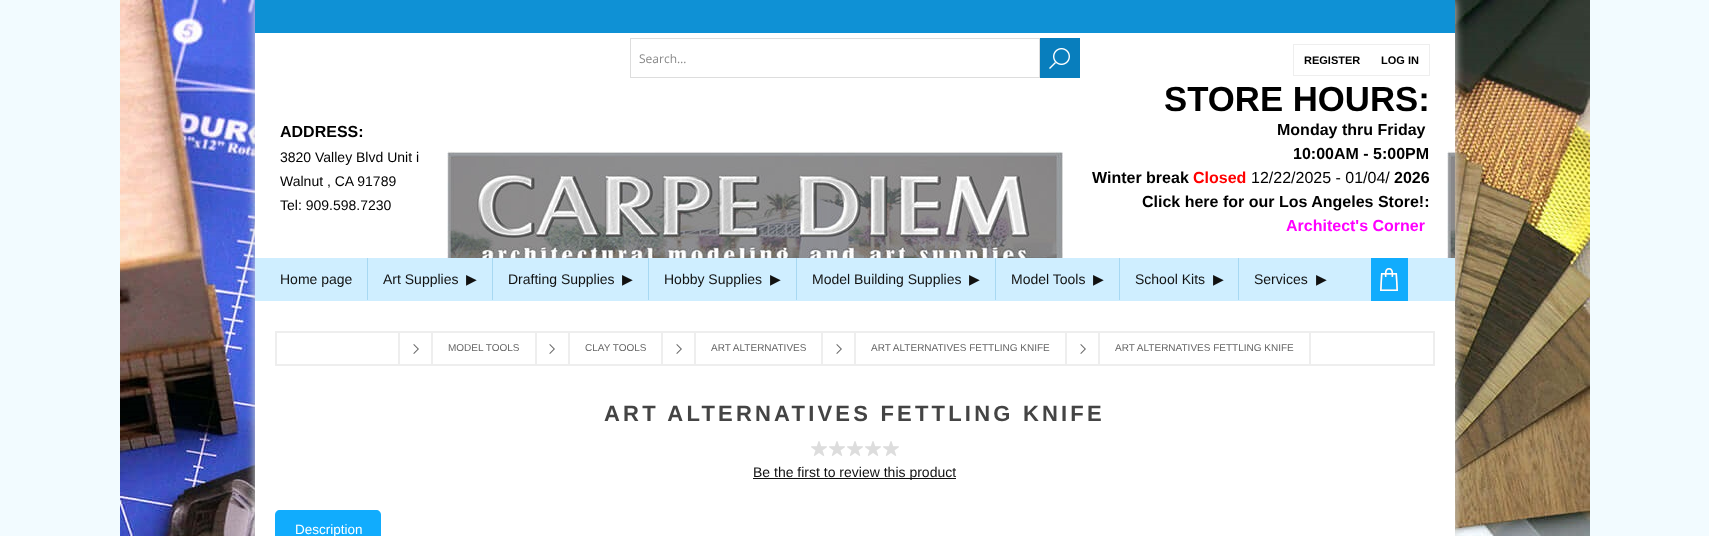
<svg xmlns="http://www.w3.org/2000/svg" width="1709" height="536">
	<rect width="100%" height="100%" fill="#F2FBFF" />
	<image x="120" y="0" width="1470" height="536" href="assets/img1.png" />
	<rect x="255" y="0" width="1200" height="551" fill="#DDDDDD" filter="blur(5px)" />
	<rect x="255" y="33" width="1200" height="503" fill="#FFFFFF" />
	<rect x="255" y="0" width="1200" height="33" fill="#0F91D5" />
	<rect x="630.5" y="38.5" width="409" height="39" fill="none" stroke="#DDDDDD" />
	<text x="639" y="63" font-family="Open Sans" font-size="12" fill="#888888">Search…</text>
	<rect x="1040" y="38" width="40" height="40" fill="#087EBD" />
	<image x="1049" y="48" width="21" height="21" href="assets/img2.png" />
	<rect x="1293.5" y="44.5" width="136" height="31" fill="none" stroke="#EEEEEE" />
	<g font-family="Liberation Sans" font-size="11" font-weight="700" fill="#000000">
		<text x="1304" y="64">REGISTER</text>
		<text x="1381" y="64">LOG IN</text>
	</g>
	<image x="447" y="151" width="1008" height="107" href="assets/img3.png" />
	<text x="280" y="137" font-family="Liberation Sans" font-size="16" font-weight="700" fill="#000000">ADDRESS:</text>
	<g font-family="Liberation Sans" font-size="14" fill="#000000">
		<text x="280" y="162">3820 Valley Blvd Unit i</text>
		<text x="280" y="186">Walnut , CA 91789</text>
		<text x="280" y="210">Tel: 909.598.7230</text>
	</g>
	<text x="1164" y="111" font-family="Liberation Sans" font-size="34.75" font-weight="700" fill="#000000">STORE HOURS:</text>
	<text x="1277" y="135" font-family="Liberation Sans" font-size="16" font-weight="700" fill="#000000">Monday thru Friday</text>
	<rect x="447" y="152" width="1008" height="106" fill="#FFFFFF" fill-opacity="0.1" />
	<g font-family="Liberation Sans" font-size="16" font-weight="700" fill="#000000">
		<text x="1293" y="159">10:00AM - 5:00PM</text>
		<text x="1092" y="183">Winter break</text>
	</g>
	<text x="1193" y="183" font-family="Liberation Sans" font-size="16" font-weight="700" fill="#FF0000">Closed</text>
	<text x="1251" y="183" font-family="Liberation Sans" font-size="16" fill="#000000">12/22/2025 - 01/04/</text>
	<g font-family="Liberation Sans" font-size="16" font-weight="700" fill="#000000">
		<text x="1394" y="183">2026</text>
		<text x="1142" y="207">Click here for our Los Angeles Store!:</text>
	</g>
	<text x="1286" y="231" font-family="Liberation Sans" font-size="16" font-weight="700" fill="#FF00FF">Architect's Corner</text>
	<rect x="255" y="258" width="1200" height="43" fill="#CFEEFF" />
	<text x="280" y="284" font-family="Liberation Sans" font-size="14" fill="#111111">Home page</text>
	<rect x="367" y="258" width="1" height="42" fill="#A7D8F2" />
	<text x="383" y="284" font-family="Liberation Sans" font-size="14" fill="#111111">Art Supplies</text>
	<text x="466" y="284" font-family="DejaVu Sans" font-size="14" fill="#111111">▶</text>
	<rect x="492" y="258" width="1" height="42" fill="#A7D8F2" />
	<text x="508" y="284" font-family="Liberation Sans" font-size="14" fill="#111111">Drafting Supplies</text>
	<text x="622" y="284" font-family="DejaVu Sans" font-size="14" fill="#111111">▶</text>
	<rect x="648" y="258" width="1" height="42" fill="#A7D8F2" />
	<text x="664" y="284" font-family="Liberation Sans" font-size="14" fill="#111111">Hobby Supplies</text>
	<text x="770" y="284" font-family="DejaVu Sans" font-size="14" fill="#111111">▶</text>
	<rect x="796" y="258" width="1" height="42" fill="#A7D8F2" />
	<text x="812" y="284" font-family="Liberation Sans" font-size="14" fill="#111111">Model Building Supplies</text>
	<text x="969" y="284" font-family="DejaVu Sans" font-size="14" fill="#111111">▶</text>
	<rect x="995" y="258" width="1" height="42" fill="#A7D8F2" />
	<text x="1011" y="284" font-family="Liberation Sans" font-size="14" fill="#111111">Model Tools</text>
	<text x="1093" y="284" font-family="DejaVu Sans" font-size="14" fill="#111111">▶</text>
	<rect x="1119" y="258" width="1" height="42" fill="#A7D8F2" />
	<text x="1135" y="284" font-family="Liberation Sans" font-size="14" fill="#111111">School Kits</text>
	<text x="1213" y="284" font-family="DejaVu Sans" font-size="14" fill="#111111">▶</text>
	<rect x="1238" y="258" width="1" height="42" fill="#A7D8F2" />
	<text x="1254" y="284" font-family="Liberation Sans" font-size="14" fill="#111111">Services</text>
	<text x="1316" y="284" font-family="DejaVu Sans" font-size="14" fill="#111111">▶</text>
	<rect x="1371" y="258" width="37" height="43" fill="#11ACFD" />
	<image x="1380" y="268" width="18" height="23" href="assets/img4.png" />
	<rect x="275" y="331" width="1160" height="2" fill="#EEEEEE" />
	<rect x="1433" y="331" width="2" height="35" fill="#EEEEEE" />
	<rect x="275" y="331" width="2" height="35" fill="#EEEEEE" />
	<image x="413" y="344" width="6" height="10" href="assets/img5.png" />
	<rect x="399" y="332" width="33" height="33" fill="none" stroke="#EEEEEE" stroke-width="2" />
	<rect x="432" y="332" width="104" height="33" fill="none" stroke="#EEEEEE" stroke-width="2" />
	<text x="448" y="351" font-family="Liberation Sans" font-size="10" fill="#666666">MODEL TOOLS</text>
	<image x="549" y="344" width="6" height="10" href="assets/img5.png" />
	<rect x="536" y="332" width="33" height="33" fill="none" stroke="#EEEEEE" stroke-width="2" />
	<rect x="569" y="332" width="93" height="33" fill="none" stroke="#EEEEEE" stroke-width="2" />
	<text x="585" y="351" font-family="Liberation Sans" font-size="10" fill="#666666">CLAY TOOLS</text>
	<image x="676" y="344" width="6" height="10" href="assets/img5.png" />
	<rect x="662" y="332" width="33" height="33" fill="none" stroke="#EEEEEE" stroke-width="2" />
	<rect x="695" y="332" width="127" height="33" fill="none" stroke="#EEEEEE" stroke-width="2" />
	<text x="711" y="351" font-family="Liberation Sans" font-size="10" fill="#666666">ART ALTERNATIVES</text>
	<image x="836" y="344" width="6" height="10" href="assets/img5.png" />
	<rect x="822" y="332" width="33" height="33" fill="none" stroke="#EEEEEE" stroke-width="2" />
	<rect x="855" y="332" width="211" height="33" fill="none" stroke="#EEEEEE" stroke-width="2" />
	<text x="871" y="351" font-family="Liberation Sans" font-size="10" fill="#666666">ART ALTERNATIVES FETTLING KNIFE</text>
	<image x="1080" y="344" width="6" height="10" href="assets/img5.png" />
	<rect x="1066" y="332" width="33" height="33" fill="none" stroke="#EEEEEE" stroke-width="2" />
	<rect x="1099" y="332" width="211" height="33" fill="none" stroke="#EEEEEE" stroke-width="2" />
	<text x="1115" y="351" font-family="Liberation Sans" font-size="10" fill="#666666">ART ALTERNATIVES FETTLING KNIFE</text>
	<rect x="277" y="364" width="1156" height="2" fill="#EEEEEE" />
	<text x="604" y="421" font-family="Liberation Sans" font-size="22" font-weight="700" letter-spacing="3.2" fill="#444444">ART ALTERNATIVES FETTLING KNIFE</text>
	<image x="811" y="441" width="88" height="15" href="assets/img6.png" />
	<rect x="753" y="478" width="203" height="1" fill="#111111" />
	<text x="753" y="477" font-family="Liberation Sans" font-size="14" fill="#111111">Be the first to review this product</text>
	<path d="M280 510H376C379 510 381 512 381 515V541H275V515C275 512 277 510 280 510Z" fill="#11ACFD" />
	<text x="295" y="534" font-family="Liberation Sans" font-size="13.5" fill="#FFFFFF">Description</text>
</svg>
